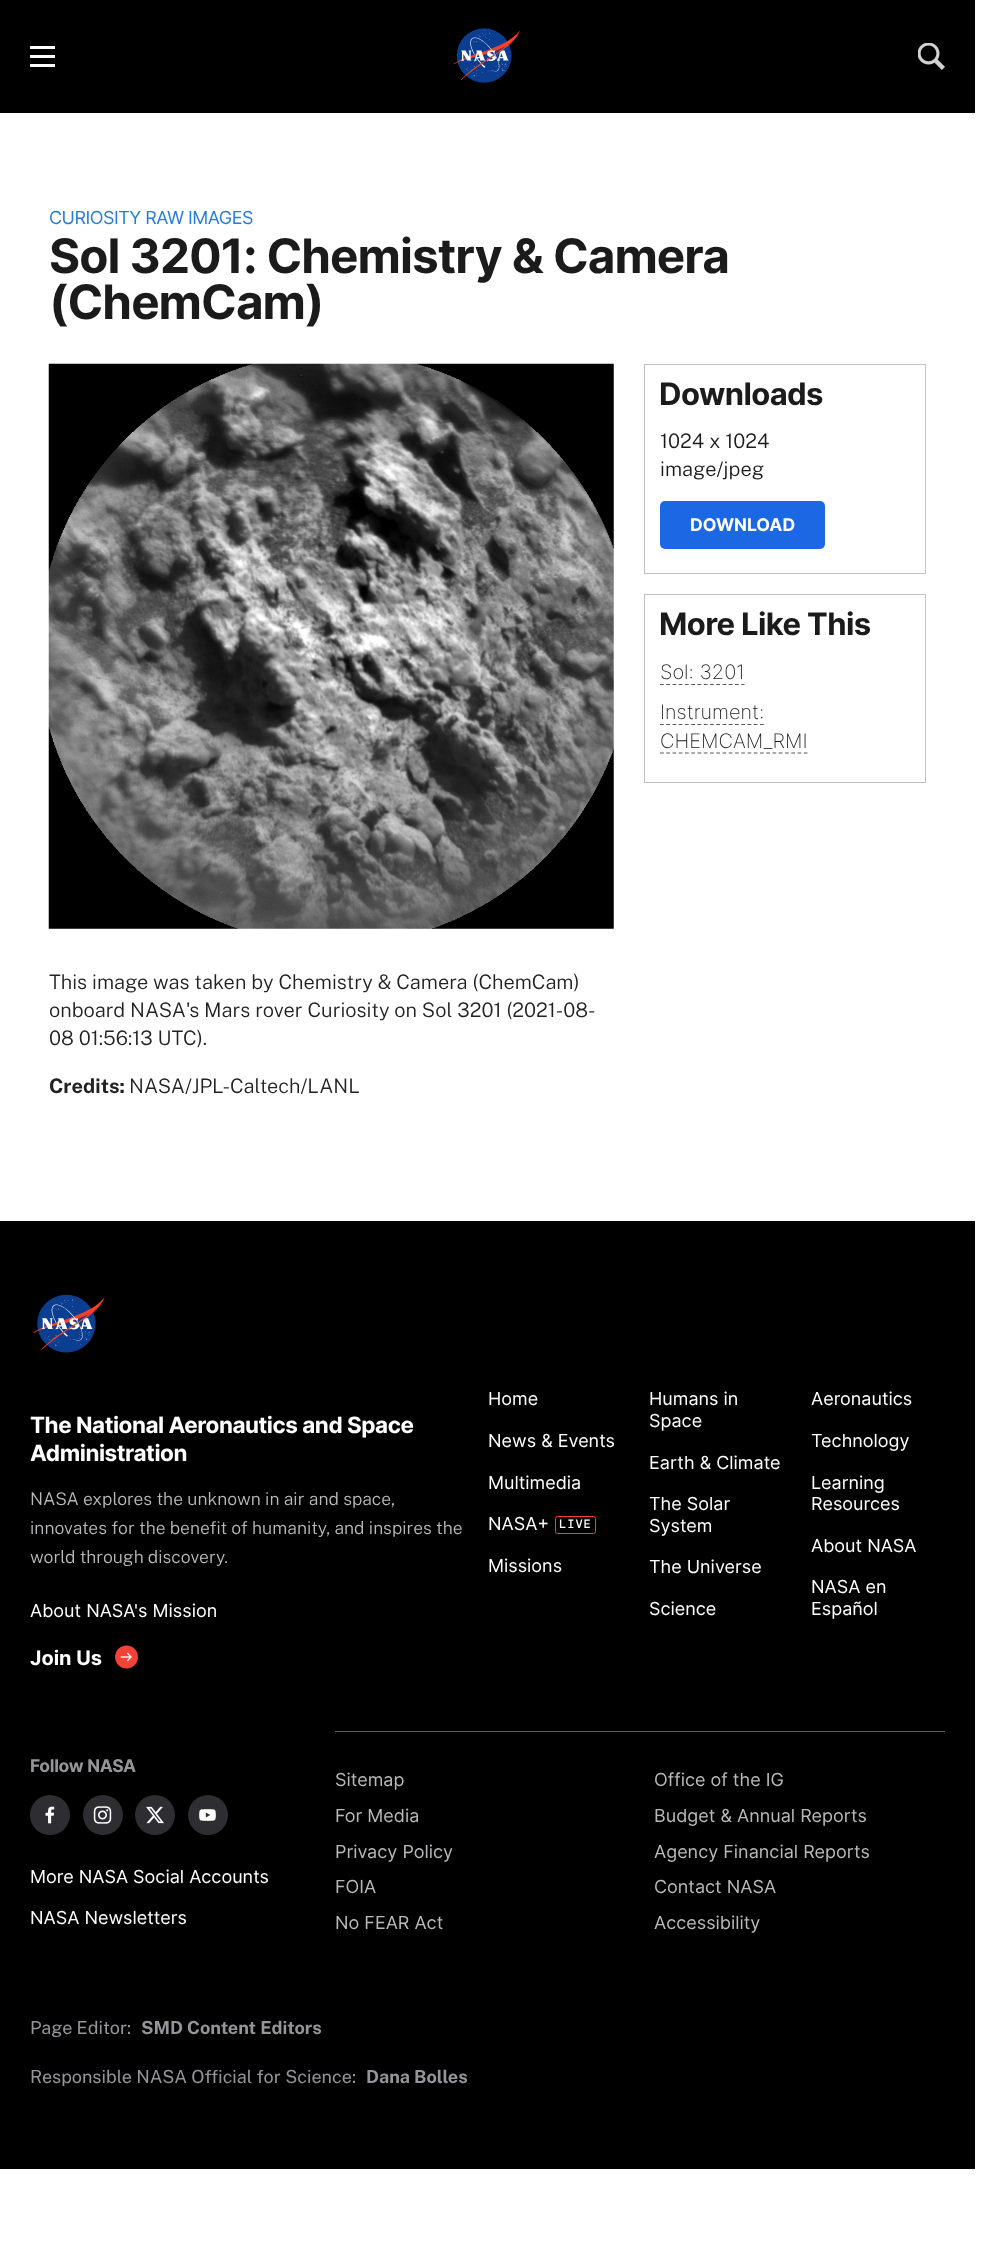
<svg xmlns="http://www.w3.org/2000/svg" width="993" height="2262">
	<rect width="100%" height="100%" fill="#FFFFFF" />
	<rect x="0" y="0" width="975" height="113" fill="#000000" />
	<rect x="30" y="46" width="25" height="3" fill="#FFFFFF" />
	<rect x="30" y="55" width="25" height="3" fill="#FFFFFF" />
	<rect x="30" y="64" width="25" height="3" fill="#FFFFFF" />
	<image x="453" y="28" width="67" height="55" href="assets/img1.png" />
	<image x="918" y="43" width="27" height="27" href="assets/img2.png" />
	<text x="49" y="224" font-family="Inter" font-size="18" letter-spacing="-0.5" fill="#257CDF">CURIOSITY RAW IMAGES</text>
	<g font-family="Inter" font-size="47.6" font-weight="700" letter-spacing="-0.95" fill="#1B1B1B">
		<text x="49" y="273">Sol 3201: Chemistry &amp; Camera</text>
		<text x="49" y="319">(ChemCam)</text>
	</g>
	<rect x="644.5" y="364.5" width="281" height="209" fill="none" stroke="#C1C1C1" />
	<text x="659" y="405" font-family="Inter" font-size="31" font-weight="700" letter-spacing="-0.6" fill="#1B1B1B">Downloads</text>
	<g font-family="Public Sans" font-size="20" font-weight="300" fill="#1B1B1B">
		<text x="660" y="448">1024 x 1024</text>
		<text x="660" y="476">image/jpeg</text>
	</g>
	<rect x="660" y="501" width="165" height="48" rx="5" fill="#1C67E3" />
	<text x="690" y="531" font-family="Inter" font-size="17.5" font-weight="700" fill="#FFFFFF">DOWNLOAD</text>
	<rect x="644.5" y="594.5" width="281" height="188" fill="none" stroke="#C1C1C1" />
	<text x="659" y="635" font-family="Inter" font-size="31" font-weight="700" letter-spacing="-0.6" fill="#1B1B1B">More Like This</text>
	<text x="660" y="679" font-family="Inter" font-size="20" font-weight="200" fill="#1B1B1B">Sol: 3201</text>
	<path d="M660 684.5H744.5" fill="none" stroke="#58585B" stroke-width="1.2" stroke-dasharray="3.75 2.5" />
	<text x="660" y="719" font-family="Inter" font-size="20" font-weight="200" fill="#1B1B1B">Instrument:</text>
	<path d="M660 724.5H764" fill="none" stroke="#58585B" stroke-width="1.2" stroke-dasharray="3.75 2.5" />
	<text x="660" y="748" font-family="Inter" font-size="20" font-weight="200" fill="#1B1B1B">CHEMCAM_RMI</text>
	<path d="M660 753H807.5" fill="none" stroke="#58585B" stroke-width="1.2" stroke-dasharray="3.75 2.5" />
	<image x="48" y="363" width="566" height="566" href="assets/img3.png" />
	<g font-family="Public Sans" font-size="20" font-weight="300" fill="#222222">
		<text x="49" y="989">This image was taken by Chemistry &amp; Camera (ChemCam)</text>
		<text x="49" y="1017">onboard NASA's Mars rover Curiosity on Sol 3201 (2021-08-</text>
		<text x="49" y="1045">08 01:56:13 UTC).</text>
	</g>
	<text x="49" y="1093" font-family="Public Sans" font-size="20" font-weight="700" fill="#222222">Credits:</text>
	<text x="129" y="1093" font-family="Public Sans" font-size="20" font-weight="300" fill="#222222">NASA/JPL-Caltech/LANL</text>
	<rect x="0" y="1221" width="975" height="948" fill="#000000" />
	<image x="33" y="1294" width="72" height="59" href="assets/img4.png" />
	<g font-family="Inter" font-size="22.5" font-weight="700" letter-spacing="-0.45" fill="#FFFFFF">
		<text x="30" y="1433">The National Aeronautics and Space</text>
		<text x="30" y="1461">Administration</text>
	</g>
	<g font-family="Public Sans" font-size="17.5" font-weight="300" fill="#B9B9BB">
		<text x="30" y="1505">NASA explores the unknown in air and space,</text>
		<text x="30" y="1534">innovates for the benefit of humanity, and inspires the</text>
		<text x="30" y="1563">world through discovery.</text>
	</g>
	<text x="30" y="1617" font-family="Inter" font-size="18" fill="#FFFFFF">About NASA's Mission</text>
	<text x="30" y="1665" font-family="Inter" font-size="20" font-weight="700" fill="#FFFFFF">Join Us</text>
	<image x="115" y="1645" width="23" height="24" href="assets/img5.png" />
	<g font-family="Inter" font-size="18" fill="#FFFFFF">
		<text x="488" y="1405">Home</text>
		<text x="649" y="1405">Humans in</text>
		<text x="649" y="1427">Space</text>
		<text x="811" y="1405">Aeronautics</text>
		<text x="488" y="1447">News &amp; Events</text>
		<text x="811" y="1447">Technology</text>
		<text x="649" y="1469">Earth &amp; Climate</text>
		<text x="488" y="1489">Multimedia</text>
		<text x="649" y="1510">The Solar</text>
		<text x="649" y="1532">System</text>
		<text x="811" y="1489">Learning</text>
		<text x="811" y="1510">Resources</text>
		<text x="488" y="1530">NASA+</text>
	</g>
	<rect x="555.5" y="1516.5" width="40" height="17" rx="2" fill="none" stroke="#F64137" />
	<text x="559" y="1528" font-family="DM Mono" font-size="12" font-weight="500" letter-spacing="1" fill="#FFFFFF">LIVE</text>
	<g font-family="Inter" font-size="18" fill="#FFFFFF">
		<text x="811" y="1552">About NASA</text>
		<text x="488" y="1572">Missions</text>
		<text x="649" y="1573">The Universe</text>
		<text x="649" y="1615">Science</text>
		<text x="811" y="1593">NASA en</text>
		<text x="811" y="1615">Español</text>
	</g>
	<text x="30" y="1772" font-family="Inter" font-size="17.5" font-weight="700" letter-spacing="-0.3" fill="#959599">Follow NASA</text>
	<circle cx="50" cy="1815" r="20" fill="#2E2E32" />
	<image x="45" y="1806" width="10" height="18" href="assets/img6.png" />
	<circle cx="103" cy="1815" r="20" fill="#2E2E32" />
	<image x="93" y="1806" width="19" height="18" href="assets/img7.png" />
	<circle cx="155" cy="1815" r="20" fill="#2E2E32" />
	<image x="146" y="1806" width="18" height="18" href="assets/img8.png" />
	<circle cx="208" cy="1815" r="20" fill="#2E2E32" />
	<image x="199" y="1809" width="17" height="12" href="assets/img9.png" />
	<g font-family="Inter" font-size="18" fill="#FFFFFF">
		<text x="30" y="1883">More NASA Social Accounts</text>
		<text x="30" y="1924">NASA Newsletters</text>
	</g>
	<rect x="335" y="1731" width="610" height="1" fill="#58585B" />
	<g font-family="Inter" font-size="18" fill="#B9B9BB">
		<text x="335" y="1786">Sitemap</text>
		<text x="654" y="1786">Office of the IG</text>
		<text x="335" y="1822">For Media</text>
		<text x="654" y="1822">Budget &amp; Annual Reports</text>
		<text x="335" y="1858">Privacy Policy</text>
		<text x="654" y="1858">Agency Financial Reports</text>
		<text x="335" y="1893">FOIA</text>
		<text x="654" y="1893">Contact NASA</text>
		<text x="335" y="1929">No FEAR Act</text>
		<text x="654" y="1929">Accessibility</text>
	</g>
	<text x="30" y="2034" font-family="Public Sans" font-size="18" fill="#959599">Page Editor:</text>
	<text x="141" y="2034" font-family="Public Sans" font-size="18" font-weight="700" fill="#959599">SMD Content Editors</text>
	<text x="30" y="2083" font-family="Public Sans" font-size="18" fill="#959599">Responsible NASA Official for Science:</text>
	<text x="366" y="2083" font-family="Public Sans" font-size="18" font-weight="700" fill="#959599">Dana Bolles</text>
</svg>
